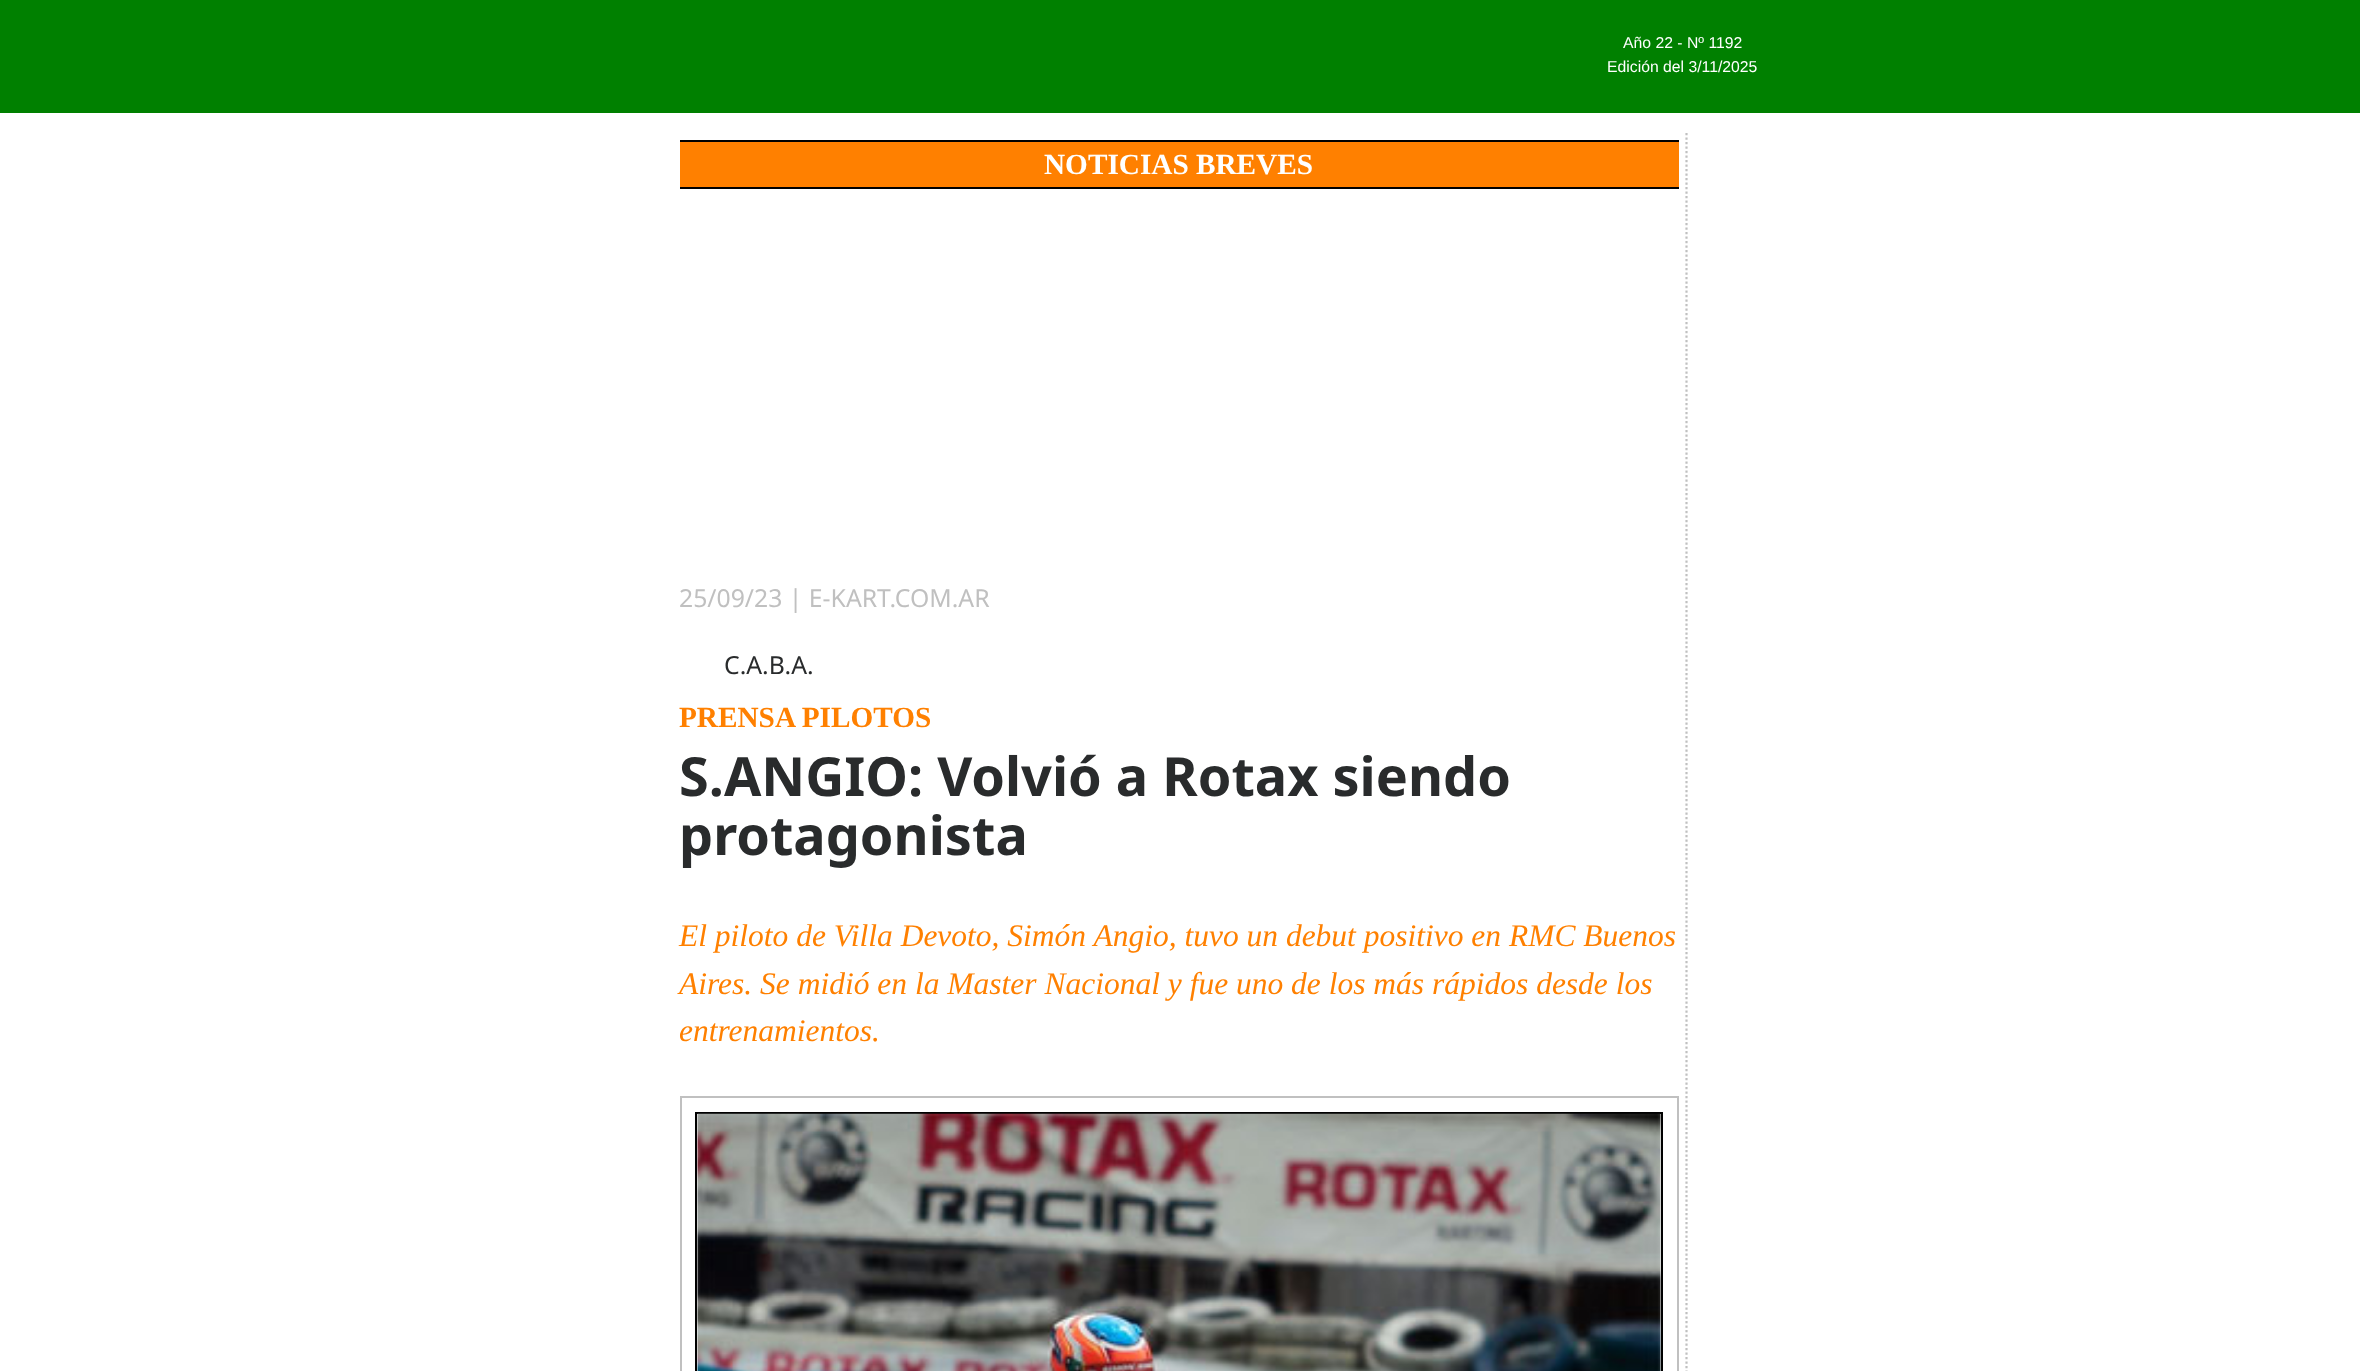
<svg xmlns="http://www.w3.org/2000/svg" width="2360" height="1371">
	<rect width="100%" height="100%" fill="#FFFFFF" />
	<rect x="0" y="0" width="2360" height="113" fill="#008000" />
	<g font-family="Liberation Sans" font-size="15.75" fill="#FFFFFF">
		<text x="1623" y="48">Año 22 - Nº 1192</text>
		<text x="1607" y="72">Edición del 3/11/2025</text>
	</g>
	<path d="M1686.5 133V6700.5" fill="none" stroke="#C0C0C0" stroke-width="2.2" stroke-dasharray="2.25 2.25" />
	<rect x="680" y="140" width="999" height="2" fill="#000000" />
	<rect x="680" y="142" width="999" height="45" fill="#FF8000" />
	<text x="1044" y="174" font-family="Liberation Serif" font-size="29.25" font-weight="700" fill="#FFFFFF">NOTICIAS BREVES</text>
	<rect x="680" y="187" width="999" height="2" fill="#000000" />
	<text x="679" y="607" font-family="Noto Sans" font-size="24.75" fill="#C0C0C0">25/09/23 | E-KART.COM.AR</text>
	<text x="724" y="674" font-family="Noto Sans" font-size="24.75" fill="#292B2C">C.A.B.A.</text>
	<text x="679" y="727" font-family="Liberation Serif" font-size="29.25" font-weight="700" fill="#FF8000">PRENSA PILOTOS</text>
	<g font-family="Noto Sans" font-size="54" font-weight="700" fill="#292B2C">
		<text x="679" y="796">S.ANGIO: Volvió a Rotax siendo</text>
		<text x="679" y="855">protagonista</text>
	</g>
	<g font-family="Liberation Serif" font-size="31.5" font-style="italic" fill="#FF8000">
		<text x="679" y="946">El piloto de Villa Devoto, Simón Angio, tuvo un debut positivo en RMC Buenos</text>
		<text x="679" y="994">Aires. Se midió en la Master Nacional y fue uno de los más rápidos desde los</text>
		<text x="679" y="1041">entrenamientos.</text>
	</g>
	<rect x="681" y="1097" width="997" height="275" fill="none" stroke="#C0C0C0" stroke-width="2" />
	<rect x="696" y="1113" width="966" height="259" fill="none" stroke="#000000" stroke-width="2" />
	<image x="697" y="1113" width="964" height="258" href="assets/img1.png" />
</svg>
